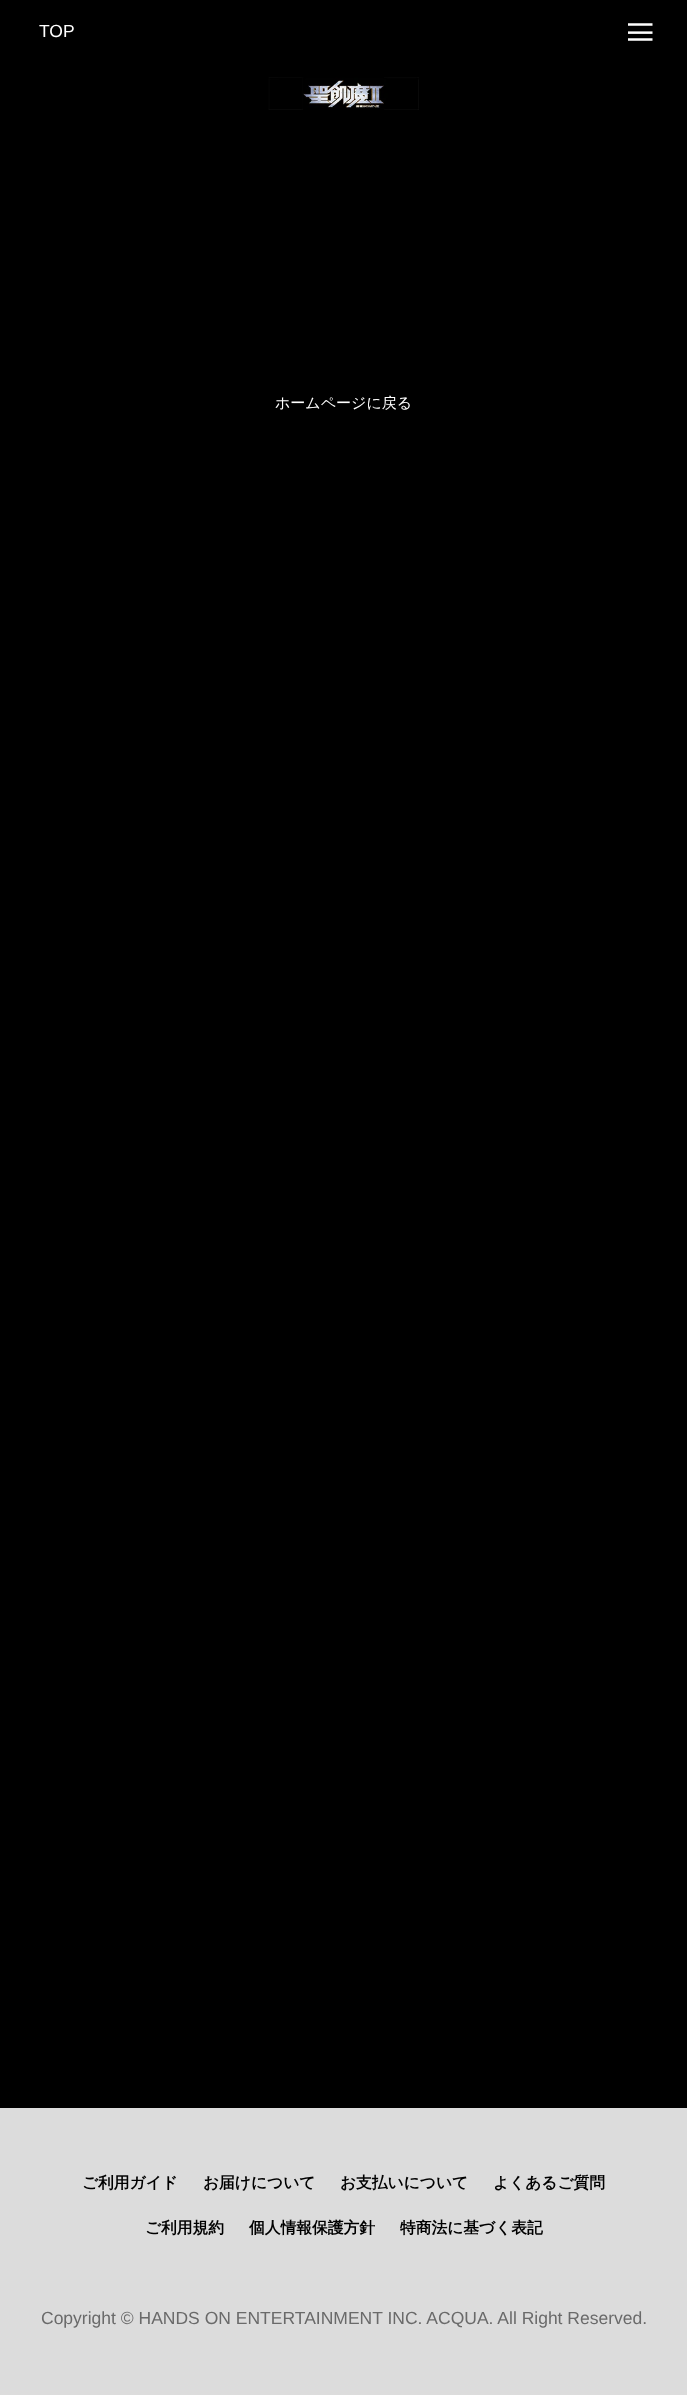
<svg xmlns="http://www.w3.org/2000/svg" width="687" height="2395">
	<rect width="100%" height="100%" fill="#000000" />
	<text x="39" y="37" font-family="Liberation Sans" font-size="17.5" fill="#FFFFFF">TOP</text>
	<image x="628" y="23" width="25" height="18" href="assets/img1.png" />
	<image x="268" y="77" width="151" height="33" href="assets/img2.png" />
	<text x="275" y="408" font-family="WenQuanYi Zen Hei" font-size="15" font-weight="500" fill="#FFFFFF">ホームページに戻る</text>
	<rect x="0" y="2108" width="687" height="287" fill="#DCDCDC" />
	<g font-family="WenQuanYi Zen Hei" font-size="15.75" font-weight="700" fill="#000000">
		<text x="82" y="2188">ご利用ガイド</text>
		<text x="203" y="2188">お届けについて</text>
		<text x="340" y="2188">お支払いについて</text>
		<text x="493" y="2188">よくあるご質問</text>
		<text x="145" y="2233">ご利用規約</text>
		<text x="249" y="2233">個人情報保護方針</text>
		<text x="400" y="2233">特商法に基づく表記</text>
	</g>
	<text x="41" y="2324" font-family="Liberation Sans" font-size="17.5" fill="#6A6A6A">Copyright © HANDS ON ENTERTAINMENT INC. ACQUA. All Right Reserved.</text>
</svg>
